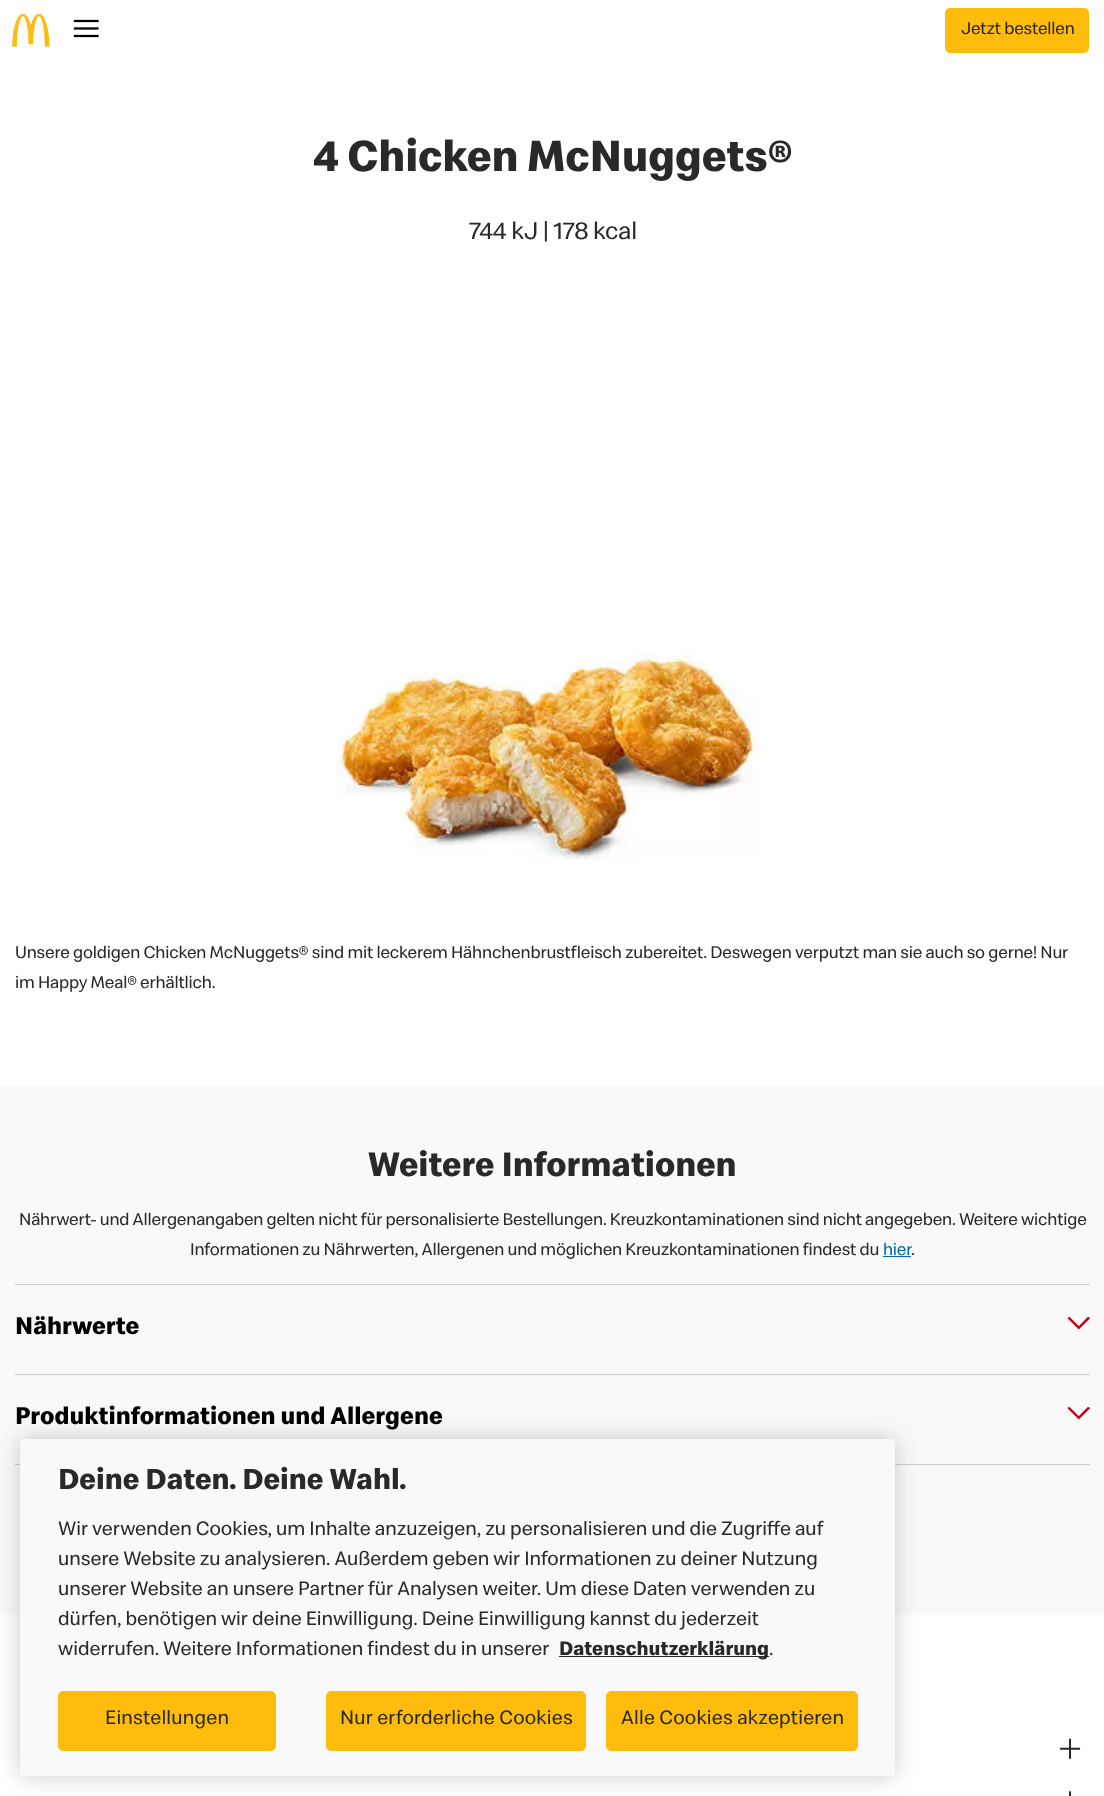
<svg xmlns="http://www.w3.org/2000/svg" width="1104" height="1796">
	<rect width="100%" height="100%" fill="#FFFFFF" />
	<image x="12" y="14" width="38" height="33" href="assets/img1.png" />
	<image x="73" y="19" width="26" height="19" href="assets/img2.png" />
	<rect x="945" y="8" width="144" height="45" rx="5" fill="#FFBC0D" />
	<text x="961" y="34" font-family="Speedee" font-size="17.5" letter-spacing="-0.19" fill="#292929">Jetzt bestellen</text>
	<text x="313" y="171" font-family="Speedee" font-size="45" font-weight="700" letter-spacing="-0.2" fill="#292929">4 Chicken McNuggets®</text>
	<text x="469" y="239" font-family="Speedee" font-size="25" letter-spacing="-0.19" fill="#292929">744 kJ | 178 kcal</text>
	<image x="336" y="651" width="427" height="209" href="assets/img3.png" />
	<g font-family="Speedee" font-size="17.5" letter-spacing="-0.16" fill="#292929">
		<text x="15" y="958">Unsere goldigen Chicken McNuggets® sind mit leckerem Hähnchenbrustfleisch zubereitet. Deswegen verputzt man sie auch so gerne! Nur</text>
		<text x="15" y="988">im Happy Meal® erhältlich.</text>
	</g>
	<rect x="0" y="1086" width="1104" height="529" fill="#F9F9F9" />
	<text x="368" y="1176" font-family="Speedee" font-size="35" font-weight="700" fill="#292929">Weitere Informationen</text>
	<g font-family="Speedee" font-size="17.5" letter-spacing="-0.19" fill="#292929">
		<text x="19" y="1225">Nährwert- und Allergenangaben gelten nicht für personalisierte Bestellungen. Kreuzkontaminationen sind nicht angegeben. Weitere wichtige</text>
		<text x="190" y="1255">Informationen zu Nährwerten, Allergenen und möglichen Kreuzkontaminationen findest du</text>
	</g>
	<text x="883" y="1255" font-family="Speedee" font-size="17.5" letter-spacing="-0.19" fill="#006BAE">hier</text>
	<rect x="883" y="1256" width="28" height="1" fill="#006BAE" />
	<text x="911" y="1255" font-family="Speedee" font-size="17.5" letter-spacing="-0.19" fill="#292929">.</text>
	<rect x="15" y="1284" width="1075" height="1" fill="#CECECE" />
	<rect x="15" y="1374" width="1075" height="1" fill="#CECECE" />
	<text x="15" y="1334" font-family="Speedee" font-size="25" font-weight="700" fill="#000000">Nährwerte</text>
	<image x="1067" y="1317" width="23" height="13" href="assets/img4.png" />
	<rect x="15" y="1464" width="1075" height="1" fill="#CECECE" />
	<text x="15" y="1424" font-family="Speedee" font-size="25" font-weight="700" fill="#000000">Produktinformationen und Allergene</text>
	<image x="1067" y="1407" width="23" height="13" href="assets/img4.png" />
	<image x="1060" y="1738" width="21" height="21" href="assets/img5.png" />
	<image x="1069" y="1791" width="2" height="5" href="assets/img6.png" />
	<rect x="20" y="1439" width="875" height="337" rx="3" fill="#000000" fill-opacity="0.2" filter="blur(11px)" />
	<rect x="20" y="1439" width="875" height="337" rx="3" fill="#F9F9F9" />
	<text x="58" y="1489" font-family="Speedee" font-size="30" font-weight="700" fill="#292929">Deine Daten. Deine Wahl.</text>
	<g font-family="Speedee" font-size="20" fill="#292929">
		<text x="58" y="1535">Wir verwenden Cookies, um Inhalte anzuzeigen, zu personalisieren und die Zugriffe auf</text>
		<text x="58" y="1565">unsere Website zu analysieren. Außerdem geben wir Informationen zu deiner Nutzung</text>
		<text x="58" y="1595">unserer Website an unsere Partner für Analysen weiter. Um diese Daten verwenden zu</text>
		<text x="58" y="1625">dürfen, benötigen wir deine Einwilligung. Deine Einwilligung kannst du jederzeit</text>
		<text x="58" y="1655">widerrufen. Weitere Informationen findest du in unserer</text>
	</g>
	<rect x="559" y="1656" width="210" height="1" fill="#242424" />
	<text x="559" y="1655" font-family="Speedee" font-size="20" font-weight="700" fill="#292929">Datenschutzerklärung</text>
	<text x="769" y="1655" font-family="Speedee" font-size="20" fill="#292929">.</text>
	<rect x="58.5" y="1691.5" width="217" height="59" rx="4.5" fill="#FFBC0D" stroke="#FFBC0D" />
	<text x="105" y="1724" font-family="Speedee" font-size="20" letter-spacing="0.2" fill="#292929">Einstellungen</text>
	<rect x="326.5" y="1691.5" width="259" height="59" rx="4.5" fill="#FFBC0D" stroke="#FFBC0D" />
	<text x="340" y="1724" font-family="Speedee" font-size="20" letter-spacing="0.2" fill="#292929">Nur erforderliche Cookies</text>
	<rect x="606.5" y="1691.5" width="251" height="59" rx="4.5" fill="#FFBC0D" stroke="#FFBC0D" />
	<text x="621" y="1724" font-family="Speedee" font-size="20" letter-spacing="0.2" fill="#292929">Alle Cookies akzeptieren</text>
</svg>
